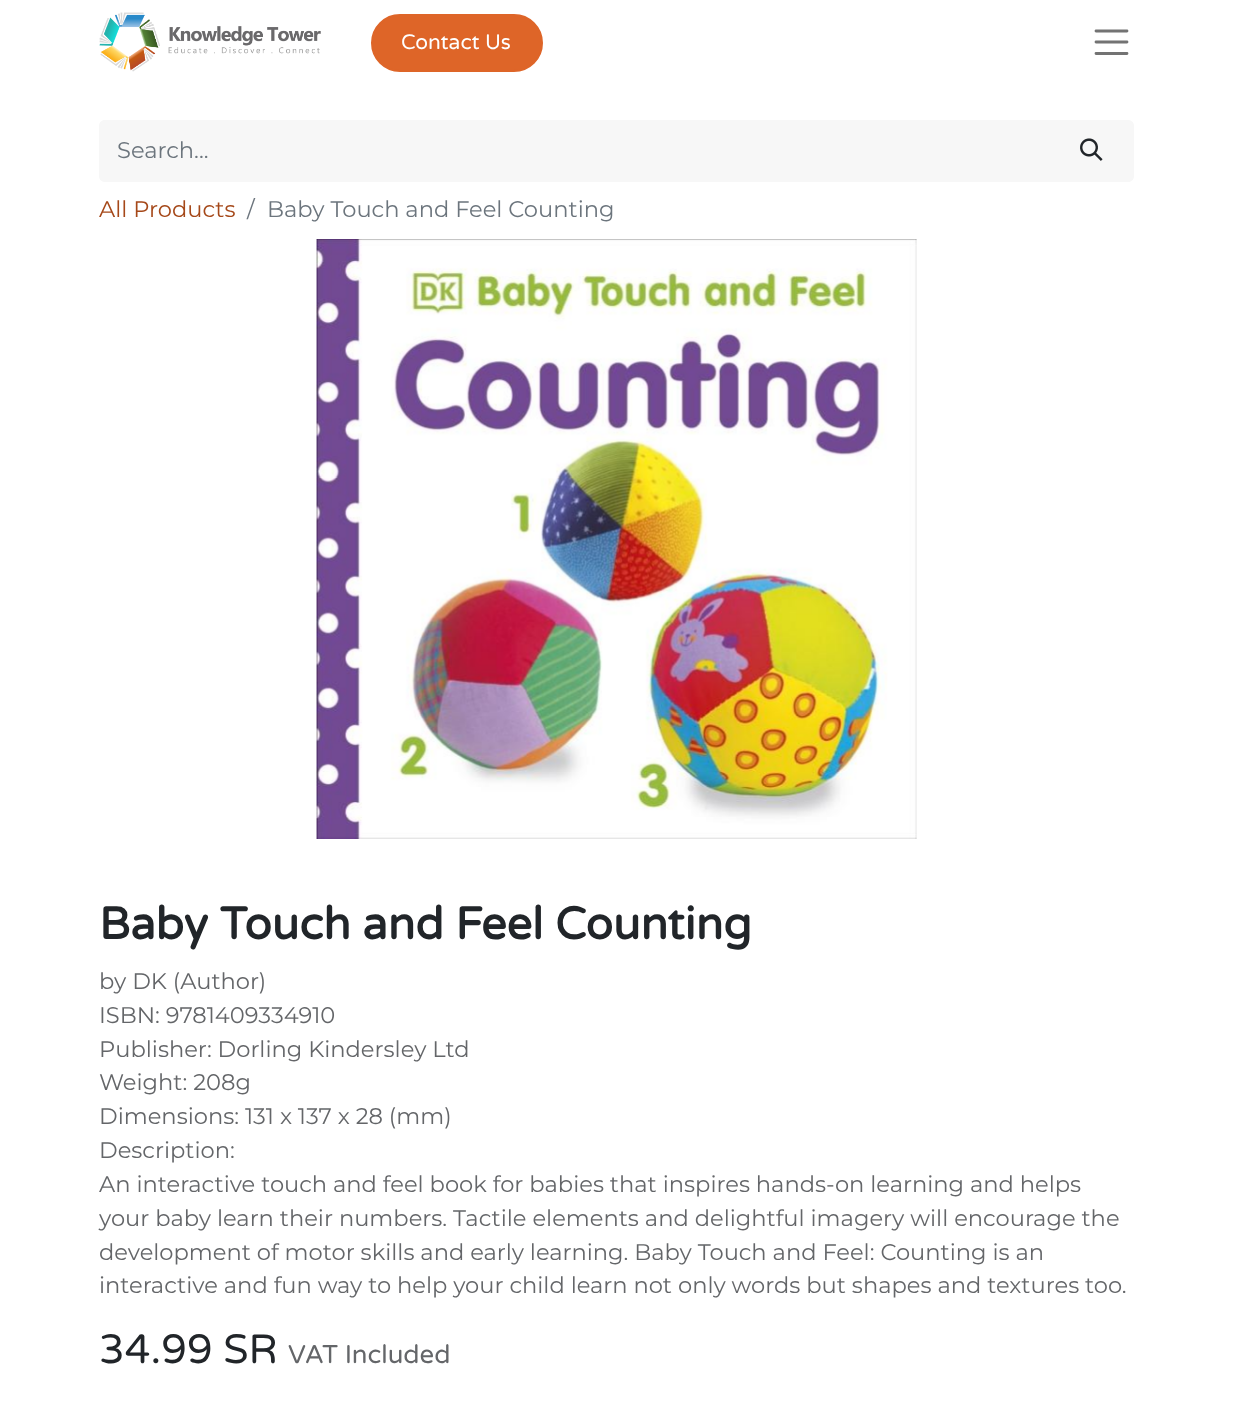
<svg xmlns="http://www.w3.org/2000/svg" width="1233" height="1403">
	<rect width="100%" height="100%" fill="#FFFFFF" />
	<image x="99" y="12" width="222" height="60" href="assets/img1.png" />
	<rect x="372" y="15" width="170" height="56" rx="28" fill="#DE6528" stroke="#DE6528" stroke-width="2" />
	<text x="401" y="49" font-family="Varela Round" font-size="21" fill="#FFFFFF">Contact Us</text>
	<path d="M1096 31H1127M1096 42H1127M1096 53.5H1127" fill="none" stroke="#737373" stroke-width="2.8" stroke-linecap="round" />
	<path d="M105 120H1050V182H105C101.5 182 99 179.5 99 176V126C99 122.5 101.5 120 105 120Z" fill="#F7F7F7" />
	<text x="117" y="158" font-family="Montserrat" font-size="22.6" fill="#6C757D">Search...</text>
	<path d="M1049 120H1128C1131.5 120 1134 122.5 1134 126V176C1134 179.5 1131.5 182 1128 182H1049Z" fill="#F7F7F7" />
	<image x="1080" y="138" width="23" height="23" href="assets/img2.png" />
	<text x="99" y="217" font-family="Montserrat" font-size="22.6" fill="#A54819">All Products</text>
	<g font-family="Montserrat" font-size="22.6" fill="#6C757D">
		<text x="247" y="217">/</text>
		<text x="267" y="217">Baby Touch and Feel Counting</text>
	</g>
	<image x="316" y="239" width="601" height="600" href="assets/img3.png" />
	<text x="99" y="939" font-family="Varela Round" font-size="45.1" font-weight="700" fill="#212529">Baby Touch and Feel Counting</text>
	<g font-family="Montserrat" font-size="22.6" fill="#646669">
		<text x="99" y="989">by DK (Author)</text>
		<text x="99" y="1023">ISBN: 9781409334910</text>
		<text x="99" y="1057">Publisher: Dorling Kindersley Ltd</text>
		<text x="99" y="1090">Weight: 208g</text>
		<text x="99" y="1124">Dimensions: 131 x 137 x 28 (mm)</text>
		<text x="99" y="1158">Description:</text>
		<text x="99" y="1192">An interactive touch and feel book for babies that inspires hands-on learning and helps</text>
		<text x="99" y="1226">your baby learn their numbers. Tactile elements and delightful imagery will encourage the</text>
		<text x="99" y="1260">development of motor skills and early learning. Baby Touch and Feel: Counting is an</text>
		<text x="99" y="1293">interactive and fun way to help your child learn not only words but shapes and textures too.</text>
	</g>
	<text x="99" y="1363" font-family="Varela Round" font-size="41" fill="#212529">34.99 SR</text>
	<text x="288" y="1363" font-family="Varela Round" font-size="25.75" fill="#646669">VAT Included</text>
</svg>
